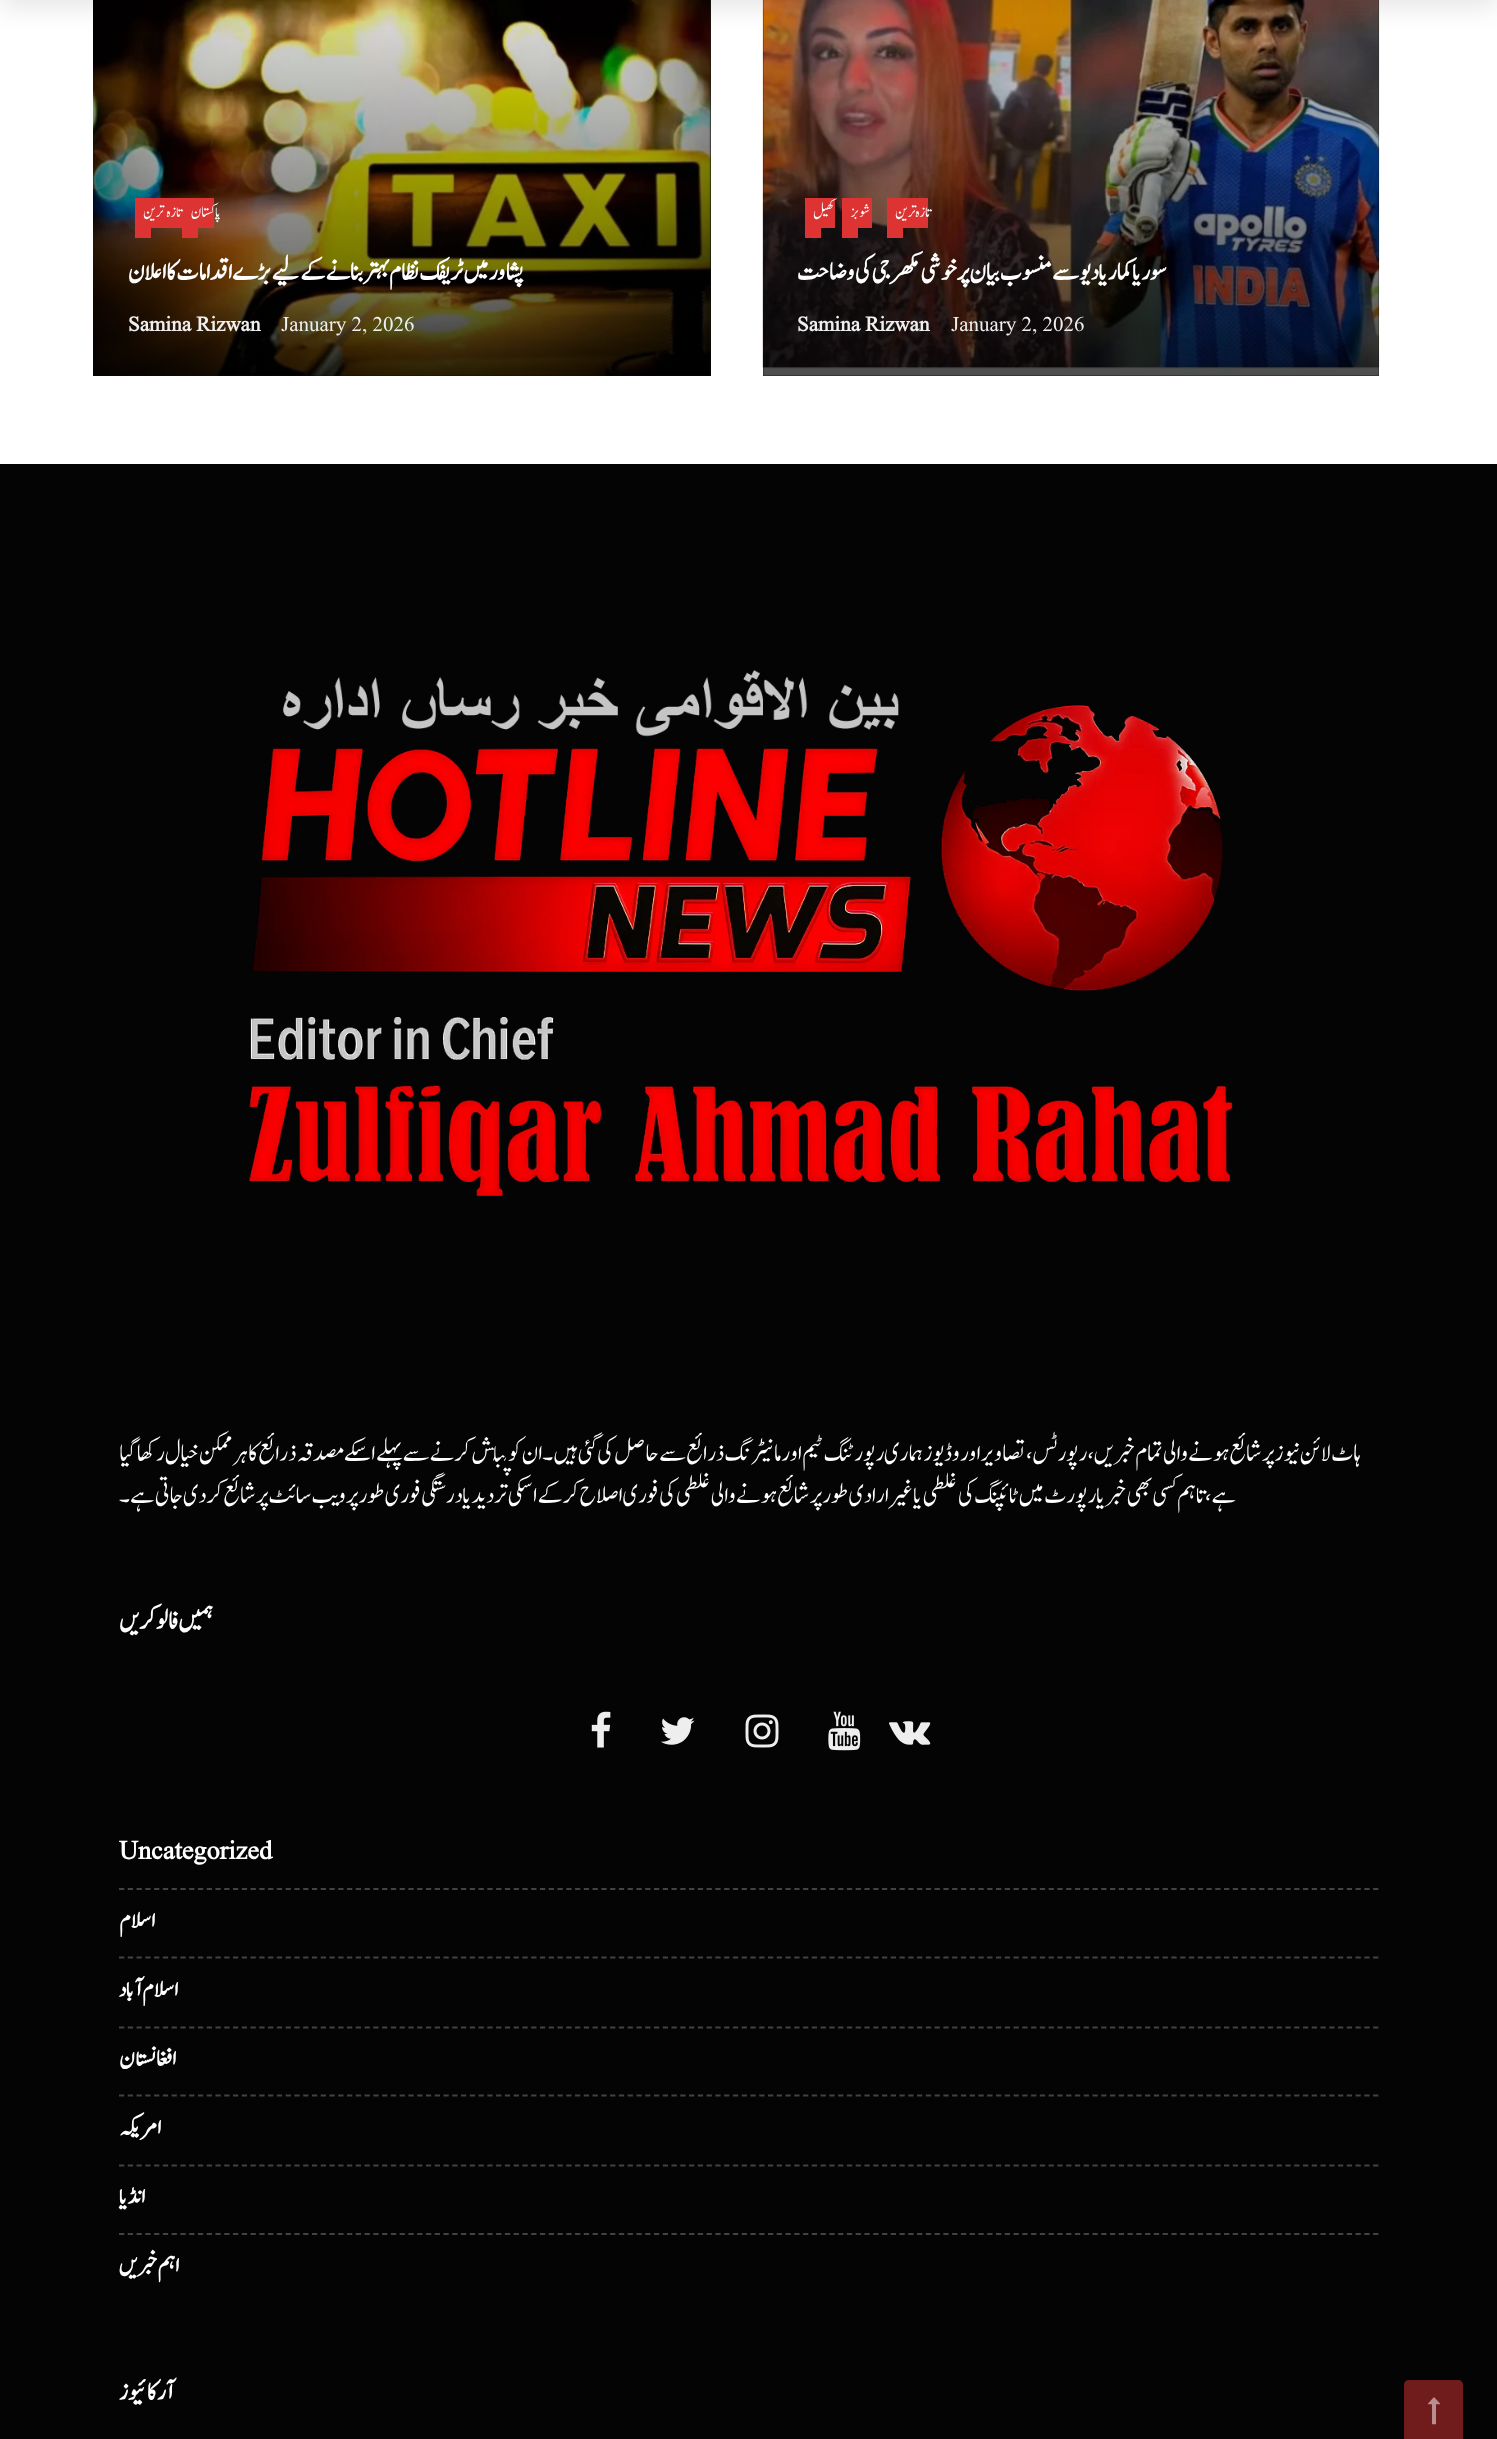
<svg xmlns="http://www.w3.org/2000/svg" width="1497" height="2439">
	<defs>
		<linearGradient id="g1" gradientUnits="userSpaceOnUse" x1="1071" y1="-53" x2="1071" y2="376"><stop offset="0" stop-color="#000000" stop-opacity="0" /><stop offset="1" stop-color="#000000" stop-opacity="0.7" /></linearGradient>
		<linearGradient id="g2" gradientUnits="userSpaceOnUse" x1="402" y1="-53" x2="402" y2="376"><stop offset="0" stop-color="#000000" stop-opacity="0" /><stop offset="1" stop-color="#000000" stop-opacity="0.7" /></linearGradient>
	</defs>
	<rect width="100%" height="100%" fill="#FFFFFF" />
	<rect x="763" y="0" width="616" height="376" fill="#222222" />
	<image x="762" y="0" width="618" height="376" href="assets/img2.png" />
	<rect x="763" y="0" width="616" height="376" fill="url(#g1)" />
	<rect x="93" y="0" width="618" height="376" fill="#222222" />
	<image x="93" y="0" width="618" height="376" href="assets/img3.png" />
	<rect x="93" y="0" width="618" height="376" fill="url(#g2)" />
	<rect x="0" y="-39" width="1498" height="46" fill="#000000" fill-opacity="0.1" filter="blur(13px)" />
	<rect x="0" y="464" width="1497" height="1975" fill="#040404" />
	<path d="M1409 2380H1458C1461 2380 1463 2382 1463 2385V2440H1404V2385C1404 2382 1406 2380 1409 2380Z" fill="#711C1C" />
	<image x="1428" y="2397" width="12" height="28" href="assets/img1.png" />
	<rect x="887" y="198" width="41" height="30" fill="#DD3333" />
	<text x="931" y="217" word-spacing="-1" font-family="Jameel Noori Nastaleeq" font-size="17.5" direction="rtl" fill="#FFFFFF">تازہ ترین</text>
	<rect x="887" y="228" width="16" height="10" fill="#DD3333" />
	<rect x="842" y="198" width="30" height="30" fill="#DD3333" />
	<text x="870" y="217" font-family="Jameel Noori Nastaleeq" font-size="17.5" direction="rtl" fill="#FFFFFF">شوبز</text>
	<rect x="842" y="228" width="16" height="10" fill="#DD3333" />
	<rect x="805" y="198" width="30" height="30" fill="#DD3333" />
	<text x="835" y="217" font-family="Jameel Noori Nastaleeq" font-size="17.5" direction="rtl" fill="#FFFFFF">کھیل</text>
	<rect x="805" y="228" width="16" height="10" fill="#DD3333" />
	<text x="1167" y="280" font-family="Jameel Noori Nastaleeq" font-size="28" font-weight="700" direction="rtl" fill="#FFFFFF">سوریا کمار یادیو سے منسوب بیان پر خوشی مکھرجی کی وضاحت</text>
	<text x="951" y="331" font-family="Jameel Noori Nastaleeq" font-size="21" fill="#EFEFEF">January 2, 2026</text>
	<text x="797" y="331" font-family="Jameel Noori Nastaleeq" font-size="21" font-weight="700" fill="#EFEFEF">Samina Rizwan</text>
	<rect x="135" y="198" width="79" height="30" fill="#DD3333" />
	<text x="221" y="217" font-family="Jameel Noori Nastaleeq" font-size="17.5" direction="rtl" fill="#FFFFFF">پاکستان</text>
	<rect x="182" y="228" width="16" height="10" fill="#DD3333" />
	<text x="182" y="217" word-spacing="2" font-family="Jameel Noori Nastaleeq" font-size="17.5" direction="rtl" fill="#FFFFFF">تازہ ترین</text>
	<rect x="135" y="228" width="16" height="10" fill="#DD3333" />
	<text x="524" y="280" font-family="Jameel Noori Nastaleeq" font-size="28" font-weight="700" direction="rtl" fill="#FFFFFF">پشاور میں ٹریفک نظام بہتر بنانے کے لیے بڑے اقدامات کا اعلان</text>
	<text x="281" y="331" font-family="Jameel Noori Nastaleeq" font-size="21" fill="#EFEFEF">January 2, 2026</text>
	<text x="128" y="331" font-family="Jameel Noori Nastaleeq" font-size="21" font-weight="700" fill="#EFEFEF">Samina Rizwan</text>
	<image x="249" y="670" width="984" height="526" href="assets/img4.png" />
	<g font-family="Jameel Noori Nastaleeq" font-size="28" direction="rtl" fill="#FFFFFF">
		<text x="1361" y="1461">ہاٹ لائن نیوز پر شائع ہونے والی تمام خبریں، رپورٹس، تصاویر اور وڈیوز ہماری رپورٹنگ ٹیم اور مانیٹرنگ ذرائع سے حاصل کی گئی ہیں۔ ان کو پبلش کرنے سے پہلے اسکے مصدقہ ذرائع کا ہرممکن خیال رکھا گیا</text>
		<text x="1236" y="1503">ہے، تاہم کسی بھی خبر یا رپورٹ میں ٹائپنگ کی غلطی یا غیرارادی طور پر شائع ہونے والی غلطی کی فوری اصلاح کرکے اسکی تردید یا درستگی فوری طور پر ویب سائٹ پر شائع کردی جاتی ہے۔</text>
	</g>
	<text x="213" y="1629" font-family="Jameel Noori Nastaleeq" font-size="28" font-weight="700" direction="rtl" fill="#FFFFFF">ہمیں فالو کریں</text>
	<image x="889" y="1721" width="42" height="24" href="assets/img5.png" />
	<image x="828" y="1711" width="33" height="40" href="assets/img6.png" />
	<image x="745" y="1714" width="34" height="34" href="assets/img7.png" />
	<image x="661" y="1717" width="34" height="28" href="assets/img8.png" />
	<image x="591" y="1711" width="20" height="37" href="assets/img9.png" />
	<path d="M119 1889H1379" fill="none" stroke="#434343" stroke-width="1.8" stroke-dasharray="5.25 3.52" />
	<text x="119" y="1859" font-family="Jameel Noori Nastaleeq" font-size="26.25" font-weight="700" fill="#FFFFFF">Uncategorized</text>
	<path d="M119 1957.5H1379" fill="none" stroke="#434343" stroke-width="1.8" stroke-dasharray="5.25 3.52" />
	<text x="155" y="1928" font-family="Jameel Noori Nastaleeq" font-size="26.25" font-weight="700" direction="rtl" fill="#FFFFFF">اسلام</text>
	<path d="M119 2027.5H1379" fill="none" stroke="#434343" stroke-width="1.8" stroke-dasharray="5.25 3.52" />
	<text x="178" y="1997" font-family="Jameel Noori Nastaleeq" font-size="26.25" font-weight="700" direction="rtl" fill="#FFFFFF">اسلام آباد</text>
	<path d="M119 2095.5H1379" fill="none" stroke="#434343" stroke-width="1.8" stroke-dasharray="5.25 3.52" />
	<text x="176" y="2066" font-family="Jameel Noori Nastaleeq" font-size="26.25" font-weight="700" direction="rtl" fill="#FFFFFF">افغانستان</text>
	<path d="M119 2165.5H1379" fill="none" stroke="#434343" stroke-width="1.8" stroke-dasharray="5.25 3.52" />
	<text x="161" y="2135" font-family="Jameel Noori Nastaleeq" font-size="26.25" font-weight="700" direction="rtl" fill="#FFFFFF">امریکہ</text>
	<path d="M119 2234H1379" fill="none" stroke="#434343" stroke-width="1.8" stroke-dasharray="5.25 3.52" />
	<g font-family="Jameel Noori Nastaleeq" font-size="26.25" font-weight="700" direction="rtl" fill="#FFFFFF">
		<text x="145" y="2204">انڈیا</text>
		<text x="179" y="2273">اہم خبریں</text>
	</g>
	<text x="174" y="2400" font-family="Jameel Noori Nastaleeq" font-size="28" font-weight="700" direction="rtl" fill="#FFFFFF">آرکائیوز</text>
</svg>
